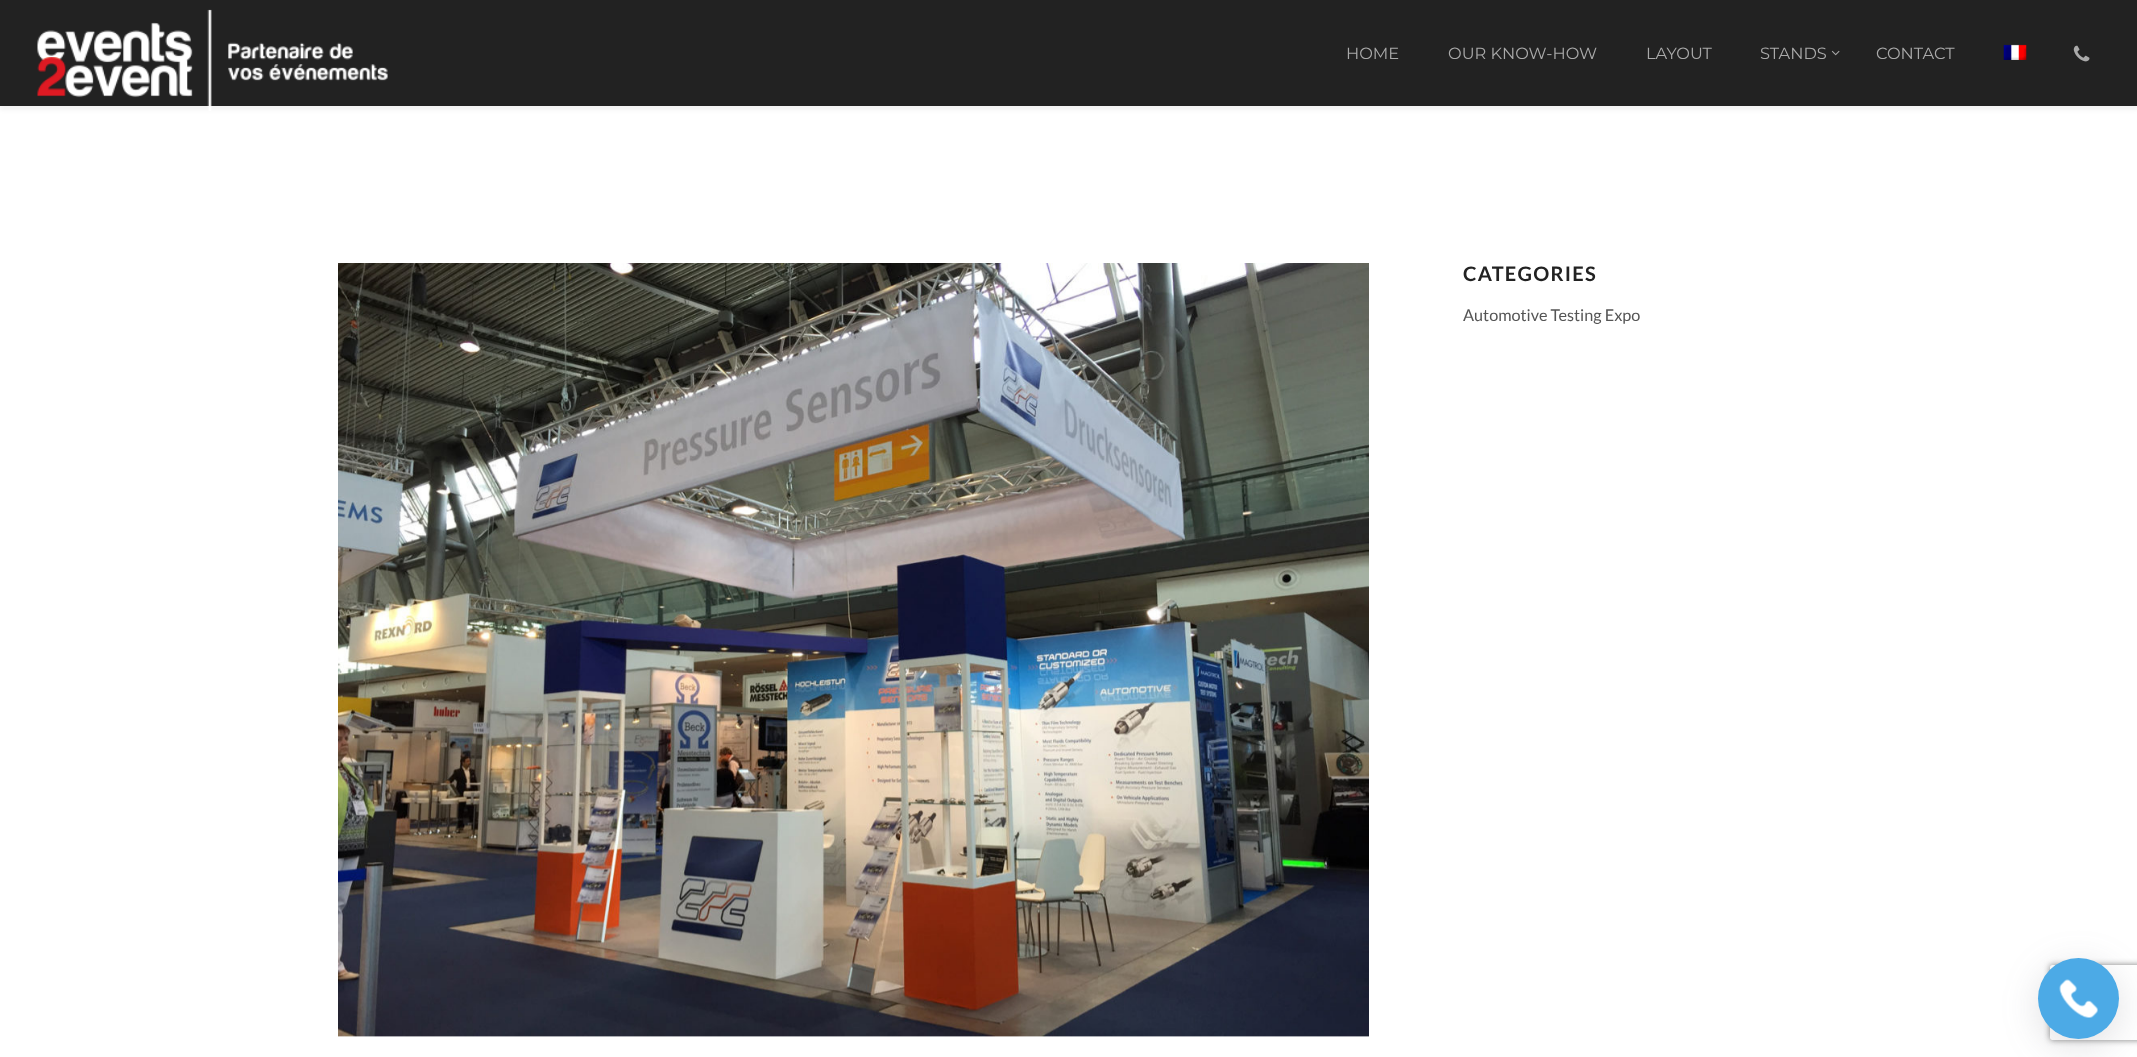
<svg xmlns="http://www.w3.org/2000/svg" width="2137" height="1057">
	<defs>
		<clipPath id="clip1"><path d="M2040 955H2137V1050H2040ZM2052.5 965H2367.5C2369 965 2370 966 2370 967.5V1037.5C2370 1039 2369 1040 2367.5 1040H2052.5C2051 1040 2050 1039 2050 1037.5V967.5C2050 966 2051 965 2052.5 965Z" clip-rule="evenodd" /></clipPath>
	</defs>
	<rect width="100%" height="100%" fill="#FFFFFF" />
	<rect x="0" y="4" width="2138" height="106" fill="#000000" fill-opacity="0.05" filter="blur(2px)" />
	<rect x="0" y="0" width="2137" height="106" fill="#222222" />
	<image x="37" y="9" width="351" height="102" href="assets/img1.png" />
	<g font-family="Montserrat" font-size="16.25" fill="#AAAAAA">
		<text x="1346" y="59">HOME</text>
		<text x="1448" y="59">OUR KNOW-HOW</text>
		<text x="1646" y="59">LAYOUT</text>
		<text x="1760" y="59">STANDS</text>
	</g>
	<image x="1831" y="50" width="9" height="6" href="assets/img2.png" />
	<text x="1876" y="59" font-family="Montserrat" font-size="16.25" fill="#AAAAAA">CONTACT</text>
	<image x="2003" y="44" width="24" height="16" href="assets/img3.png" />
	<image x="2073" y="45" width="17" height="17" href="assets/img4.png" />
	<image x="338" y="263" width="1031" height="774" href="assets/img5.png" />
	<text x="1463" y="281" font-family="Lato" font-size="20" font-weight="700" letter-spacing="1.25" fill="#222222">CATEGORIES</text>
	<text x="1463" y="321" font-family="Lato" font-size="16.25" fill="#555555">Automotive Testing Expo</text>
	<rect x="2038" y="966" width="81" height="82" rx="40.5" fill="#64646F" fill-opacity="0.2" filter="blur(18px)" />
	<g clip-path="url(#clip1)">
		<rect x="2050" y="965" width="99" height="75" rx="2.5" fill="#808080" filter="blur(3px)" />
	</g>
	<circle cx="2078.5" cy="998.5" r="40.5" fill="#4CAAE6" />
	<image x="2059" y="979" width="39" height="39" href="assets/img6.png" />
</svg>
